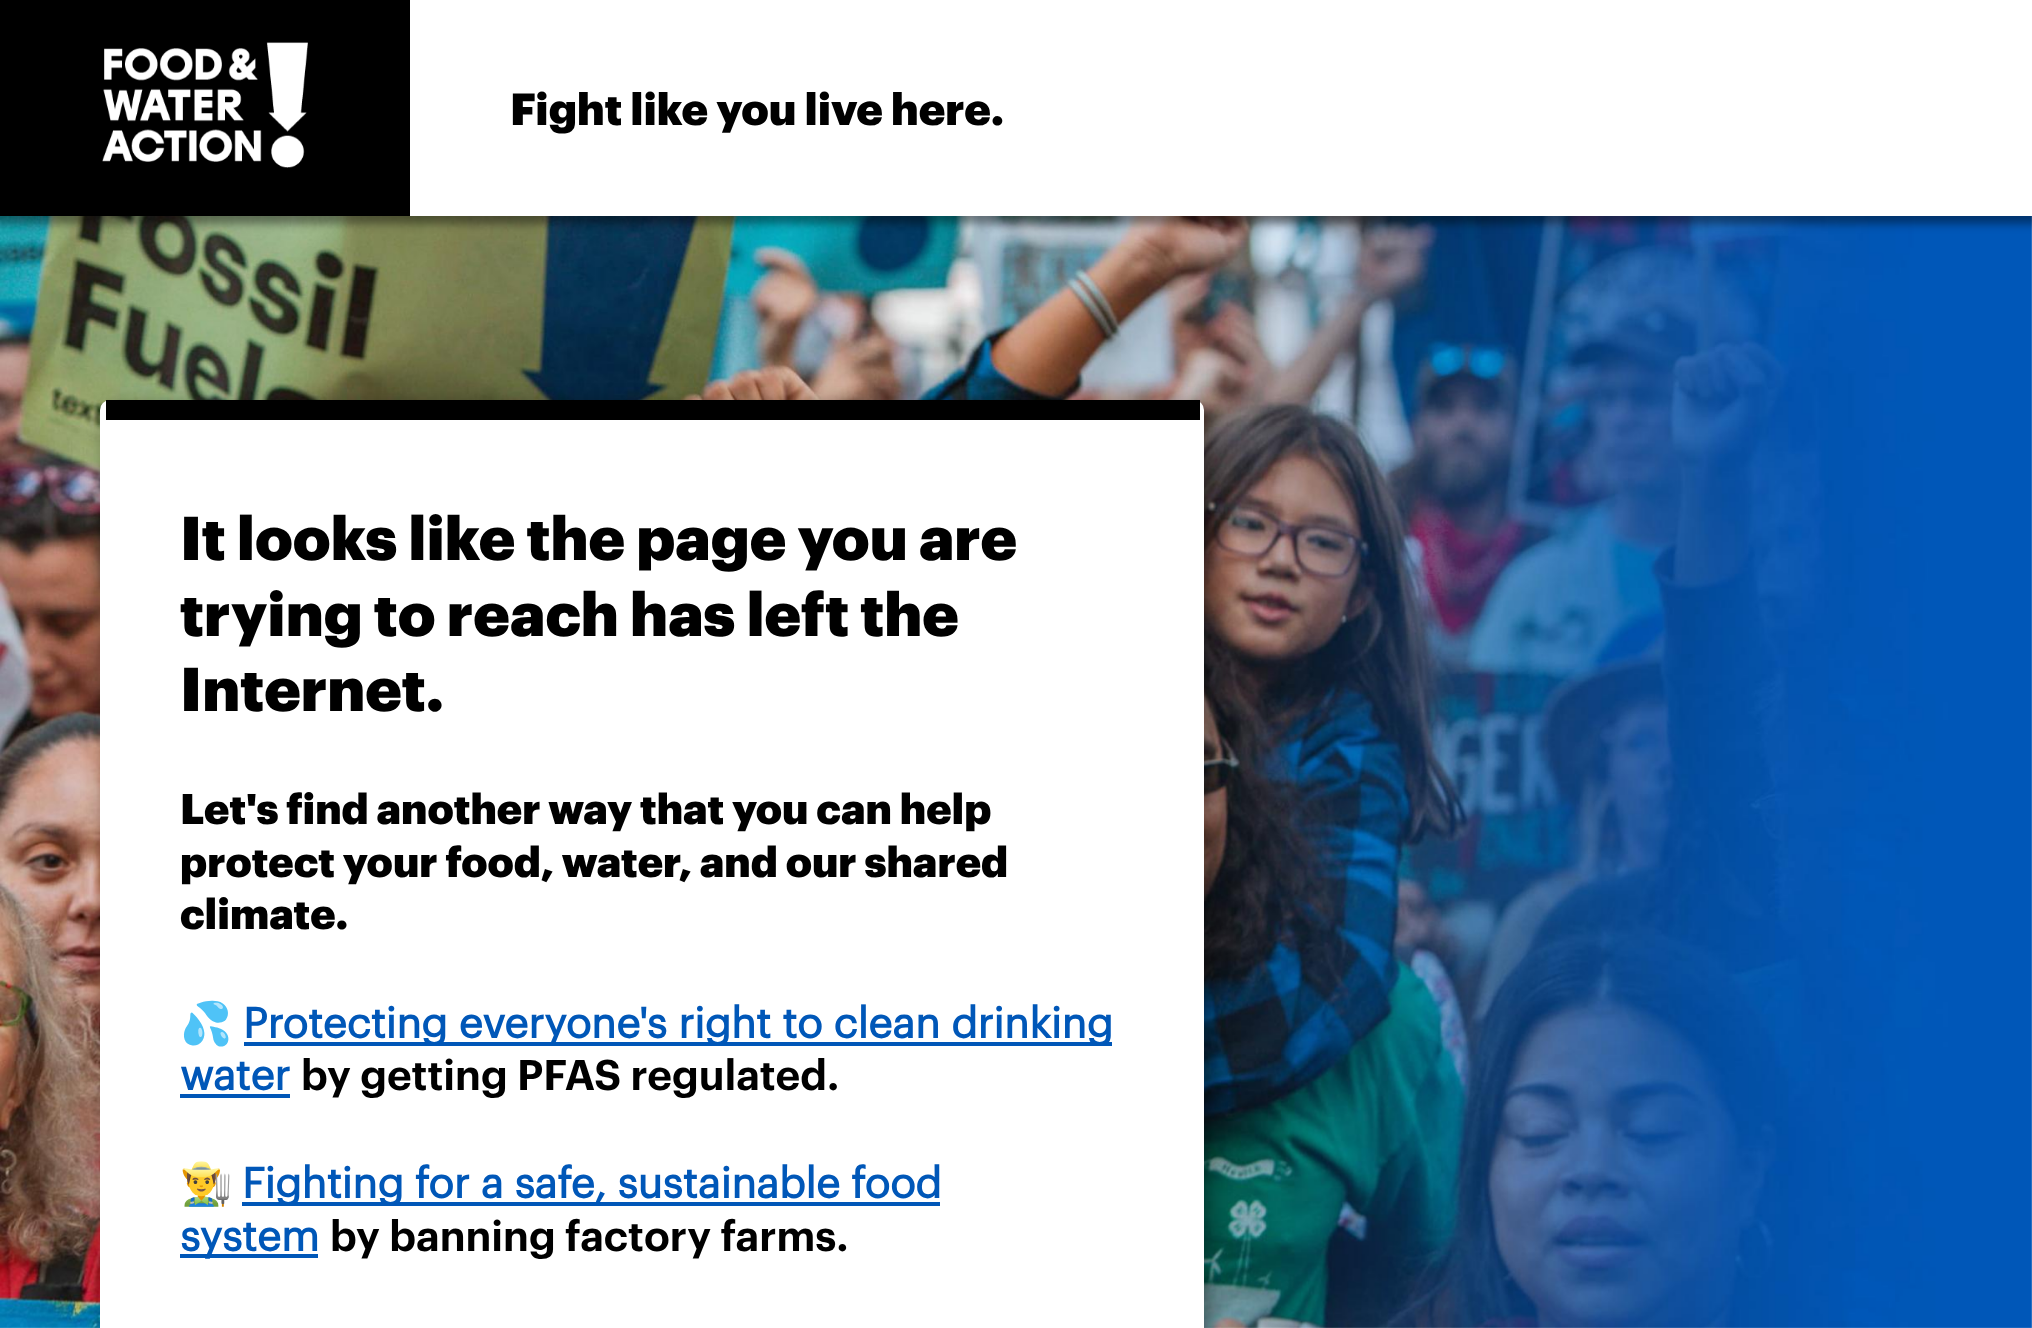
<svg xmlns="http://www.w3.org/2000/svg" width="2032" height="1328">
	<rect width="100%" height="100%" fill="#FFFFFF" />
	<image x="0" y="216" width="2032" height="1112" href="assets/img2.png" />
	<rect x="-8" y="-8" width="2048" height="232" fill="#000000" fill-opacity="0.4" filter="blur(4px)" />
	<rect x="410" y="0" width="1622" height="216" fill="#FFFFFF" />
	<rect x="0" y="0" width="410" height="216" fill="#000000" />
	<image x="102" y="42" width="206" height="126" href="assets/img1.png" />
	<text x="510" y="125" font-family="Graphik" font-size="44" font-weight="800" fill="#000000">Fight like you live here.</text>
	<rect x="106" y="406" width="1104" height="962" rx="10" fill="#000000" fill-opacity="0.4" filter="blur(10px)" />
	<rect x="100" y="400" width="1104" height="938" rx="10" fill="#FFFFFF" />
	<rect x="106" y="400" width="1094" height="20" fill="#000000" />
	<g font-family="Graphik" font-size="60.5" font-weight="800" fill="#000000">
		<text x="180" y="560">It looks like the page you are</text>
		<text x="180" y="636">trying to reach has left the</text>
		<text x="180" y="711">Internet.</text>
	</g>
	<g font-family="Graphik" font-size="42" font-weight="800" fill="#000000">
		<text x="180" y="824">Let's find another way that you can help</text>
		<text x="180" y="877">protect your food, water, and our shared</text>
		<text x="180" y="929">climate.</text>
	</g>
	<text x="180" y="1038" font-family="Noto Color Emoji" font-size="42" font-weight="700" fill="#000000">💦</text>
	<rect x="244" y="1042" width="868" height="4" fill="#0057B8" />
	<g font-family="Graphik" font-size="42" font-weight="700" fill="#0057B8">
		<text x="243" y="1038">Protecting everyone's right to clean drinking</text>
		<text x="180" y="1090">water</text>
	</g>
	<rect x="180" y="1094" width="110" height="4" fill="#0057B8" />
	<text x="301" y="1090" font-family="Graphik" font-size="42" font-weight="600" fill="#000000">by getting PFAS regulated.</text>
	<text x="180" y="1198" font-family="Noto Color Emoji" font-size="42" font-weight="700" fill="#000000">👨‍🌾</text>
	<rect x="242" y="1202" width="698" height="4" fill="#0057B8" />
	<text x="242" y="1198" font-family="Graphik" font-size="42" font-weight="700" fill="#0057B8">Fighting for a safe, sustainable food</text>
	<rect x="180" y="1254" width="138" height="4" fill="#0057B8" />
	<text x="180" y="1251" font-family="Graphik" font-size="42" font-weight="700" fill="#0057B8">system</text>
	<text x="330" y="1251" font-family="Graphik" font-size="42" font-weight="600" fill="#000000">by banning factory farms.</text>
</svg>
